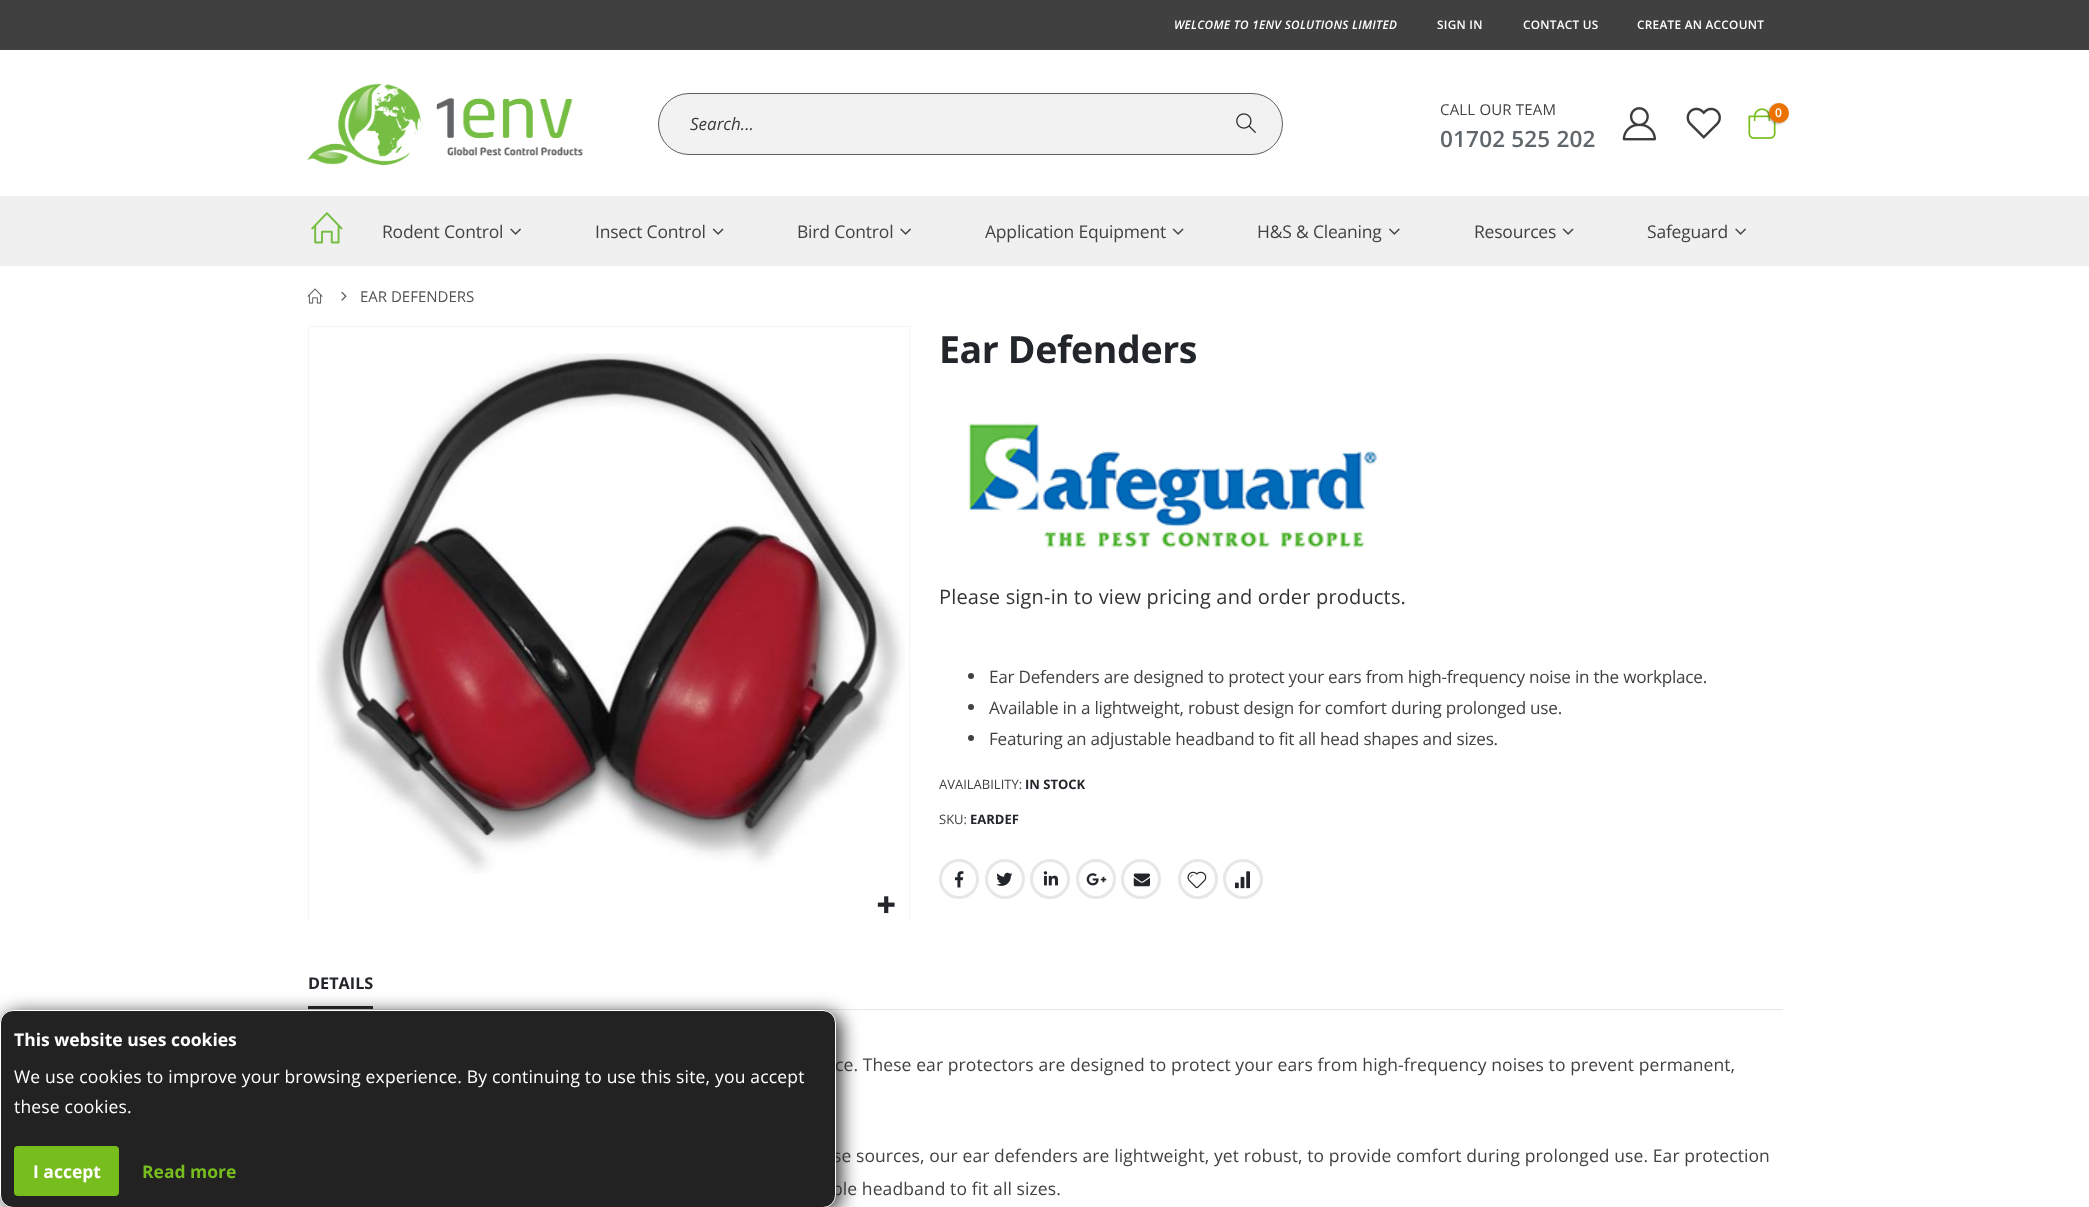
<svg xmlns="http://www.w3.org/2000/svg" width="2089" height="1207">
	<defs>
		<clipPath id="clip1"><rect x="308" y="326" width="602" height="593" /></clipPath>
	</defs>
	<rect width="100%" height="100%" fill="#FFFFFF" />
	<rect x="0" y="0" width="2089" height="50" fill="#404040" />
	<text x="1174" y="29" font-family="Open Sans" font-size="11.75" font-weight="600" font-style="italic" letter-spacing="0.3" fill="#FFFFFF">WELCOME TO 1ENV SOLUTIONS LIMITED</text>
	<g font-family="Open Sans" font-size="11.75" font-weight="600" letter-spacing="0.3" fill="#FFFFFF">
		<text x="1437" y="29">SIGN IN</text>
		<text x="1523" y="29">CONTACT US</text>
		<text x="1637" y="29">CREATE AN ACCOUNT</text>
	</g>
	<image x="307" y="83" width="276" height="82" href="assets/img1.png" />
	<rect x="658.5" y="93.5" width="624" height="61" rx="30.5" fill="#F2F2F2" stroke="#5E5E5E" />
	<text x="690" y="130" font-family="Open Sans" font-size="17" font-style="italic" fill="#3A3A3A">Search...</text>
	<image x="1236" y="113" width="20" height="20" href="assets/img2.png" />
	<text x="1440" y="115" font-family="Open Sans" font-size="15" letter-spacing="0.18" fill="#424242">CALL OUR TEAM</text>
	<text x="1440" y="147" font-family="Open Sans" font-size="22.5" font-weight="600" letter-spacing="0.18" fill="#606669">01702 525 202</text>
	<image x="1622" y="107" width="34" height="34" href="assets/img3.png" />
	<image x="1686" y="107" width="35" height="32" href="assets/img4.png" />
	<image x="1748" y="108" width="28" height="31" href="assets/img5.png" />
	<rect x="1768" y="104" width="20" height="20" rx="10" fill="#000000" fill-opacity="0.3" filter="blur(1px)" />
	<circle cx="1779" cy="113" r="10" fill="#EC7200" />
	<text x="1775" y="117" font-family="Open Sans" font-size="12" font-weight="600" fill="#FFFFFF">0</text>
	<rect x="0" y="196" width="2089" height="70" fill="#F0F0F0" />
	<image x="311" y="212" width="32" height="32" href="assets/img6.png" />
	<text x="382" y="238" font-family="Open Sans" font-size="17.5" letter-spacing="-0.2" fill="#424242">Rodent Control</text>
	<image x="510" y="228" width="11" height="7" href="assets/img7.png" />
	<text x="595" y="238" font-family="Open Sans" font-size="17.5" letter-spacing="-0.2" fill="#424242">Insect Control</text>
	<image x="712" y="228" width="12" height="7" href="assets/img8.png" />
	<text x="797" y="238" font-family="Open Sans" font-size="17.5" letter-spacing="-0.2" fill="#424242">Bird Control</text>
	<image x="900" y="228" width="11" height="7" href="assets/img7.png" />
	<text x="985" y="238" font-family="Open Sans" font-size="17.5" letter-spacing="-0.2" fill="#424242">Application Equipment</text>
	<image x="1172" y="228" width="12" height="7" href="assets/img8.png" />
	<text x="1257" y="238" font-family="Open Sans" font-size="17.5" letter-spacing="-0.2" fill="#424242">H&amp;S &amp; Cleaning</text>
	<image x="1389" y="228" width="11" height="7" href="assets/img9.png" />
	<text x="1474" y="238" font-family="Open Sans" font-size="17.5" letter-spacing="-0.2" fill="#424242">Resources</text>
	<image x="1562" y="228" width="12" height="7" href="assets/img8.png" />
	<text x="1647" y="238" font-family="Open Sans" font-size="17.5" letter-spacing="-0.2" fill="#424242">Safeguard</text>
	<image x="1735" y="228" width="11" height="7" href="assets/img7.png" />
	<image x="307" y="288" width="16" height="16" href="assets/img10.png" />
	<image x="341" y="291" width="6" height="10" href="assets/img11.png" />
	<text x="360" y="302" font-family="Open Sans" font-size="15" fill="#525252">EAR DEFENDERS</text>
	<g clip-path="url(#clip1)">
		<rect x="308.5" y="326.5" width="601" height="602" fill="none" stroke="#F4F4F4" />
	</g>
	<image x="316" y="353" width="589" height="521" href="assets/img12.png" />
	<image x="877" y="896" width="18" height="18" href="assets/img13.png" />
	<text x="939" y="363" font-family="Open Sans" font-size="37.5" font-weight="700" letter-spacing="-0.4" fill="#222529">Ear Defenders</text>
	<image x="968" y="421" width="409" height="127" href="assets/img14.png" />
	<text x="939" y="604" font-family="Open Sans" font-size="20" letter-spacing="0.18" fill="#333333">Please sign-in to view pricing and order products.</text>
	<circle cx="971" cy="676" r="3" fill="#424242" />
	<text x="989" y="683" font-family="Open Sans" font-size="17.15" letter-spacing="-0.25" fill="#424242">Ear Defenders are designed to protect your ears from high-frequency noise in the workplace.</text>
	<circle cx="971" cy="707" r="3" fill="#424242" />
	<text x="989" y="714" font-family="Open Sans" font-size="17.15" letter-spacing="-0.25" fill="#424242">Available in a lightweight, robust design for comfort during prolonged use.</text>
	<circle cx="971" cy="738" r="3" fill="#424242" />
	<text x="989" y="745" font-family="Open Sans" font-size="17.15" letter-spacing="-0.25" fill="#424242">Featuring an adjustable headband to fit all head shapes and sizes.</text>
	<text x="939" y="789" font-family="Open Sans" font-size="13" fill="#424242">AVAILABILITY:</text>
	<text x="1025" y="789" font-family="Open Sans" font-size="13" font-weight="700" fill="#222529">IN STOCK</text>
	<text x="939" y="824" font-family="Open Sans" font-size="13" fill="#424242">SKU:</text>
	<text x="970" y="824" font-family="Open Sans" font-size="13" font-weight="700" fill="#222529">EARDEF</text>
	<circle cx="959" cy="879" r="18.5" fill="none" stroke="#E7E7E7" stroke-width="3" />
	<image x="955" y="871" width="9" height="17" href="assets/img15.png" />
	<circle cx="1005" cy="879" r="18.5" fill="none" stroke="#E7E7E7" stroke-width="3" />
	<image x="996" y="872" width="17" height="14" href="assets/img16.png" />
	<circle cx="1050" cy="879" r="18.5" fill="none" stroke="#E7E7E7" stroke-width="3" />
	<image x="1043" y="871" width="15" height="15" href="assets/img17.png" />
	<circle cx="1096" cy="879" r="18.5" fill="none" stroke="#E7E7E7" stroke-width="3" />
	<image x="1086" y="873" width="21" height="13" href="assets/img18.png" />
	<circle cx="1141" cy="879" r="18.5" fill="none" stroke="#E7E7E7" stroke-width="3" />
	<image x="1133" y="873" width="17" height="14" href="assets/img19.png" />
	<circle cx="1198" cy="879" r="18.5" fill="none" stroke="#E7E7E7" stroke-width="3" />
	<image x="1187" y="871" width="20" height="18" href="assets/img20.png" />
	<circle cx="1243" cy="879" r="18.5" fill="none" stroke="#E7E7E7" stroke-width="3" />
	<image x="1235" y="871" width="15" height="18" href="assets/img21.png" />
	<rect x="308" y="1006" width="65" height="3" fill="#222529" />
	<text x="308" y="989" font-family="Open Sans" font-size="16.25" font-weight="700" fill="#222529">DETAILS</text>
	<rect x="308" y="1009" width="1475" height="1" fill="#E7E7E7" />
	<g font-family="Open Sans" font-size="17.5" letter-spacing="0.09" fill="#424242">
		<text x="835" y="1071">ce. These ear protectors are designed to protect your ears from high-frequency noises to prevent permanent,</text>
		<text x="833" y="1162">se sources, our ear defenders are lightweight, yet robust, to provide comfort during prolonged use. Ear protection</text>
		<text x="832" y="1195">ble headband to fit all sizes.</text>
	</g>
	<rect x="4" y="1014" width="836" height="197" rx="13" fill="#222222" filter="blur(9.5px)" />
	<rect x="0.5" y="1010.5" width="835" height="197" rx="12.5" fill="#222222" stroke="#FFFFFF" />
	<text x="14" y="1046" font-family="Open Sans" font-size="17.5" font-weight="700" fill="#FFFFFF">This website uses cookies</text>
	<g font-family="Open Sans" font-size="17.5" letter-spacing="0.18" fill="#FFFFFF">
		<text x="14" y="1083">We use cookies to improve your browsing experience. By continuing to use this site, you accept</text>
		<text x="14" y="1113">these cookies.</text>
	</g>
	<rect x="14" y="1146" width="105" height="50" rx="4" fill="#78BD1E" />
	<text x="33" y="1178" font-family="Open Sans" font-size="17.5" font-weight="700" fill="#FFFFFF">I accept</text>
	<text x="142" y="1178" font-family="Open Sans" font-size="17.5" font-weight="700" fill="#78BD1E">Read more</text>
</svg>
